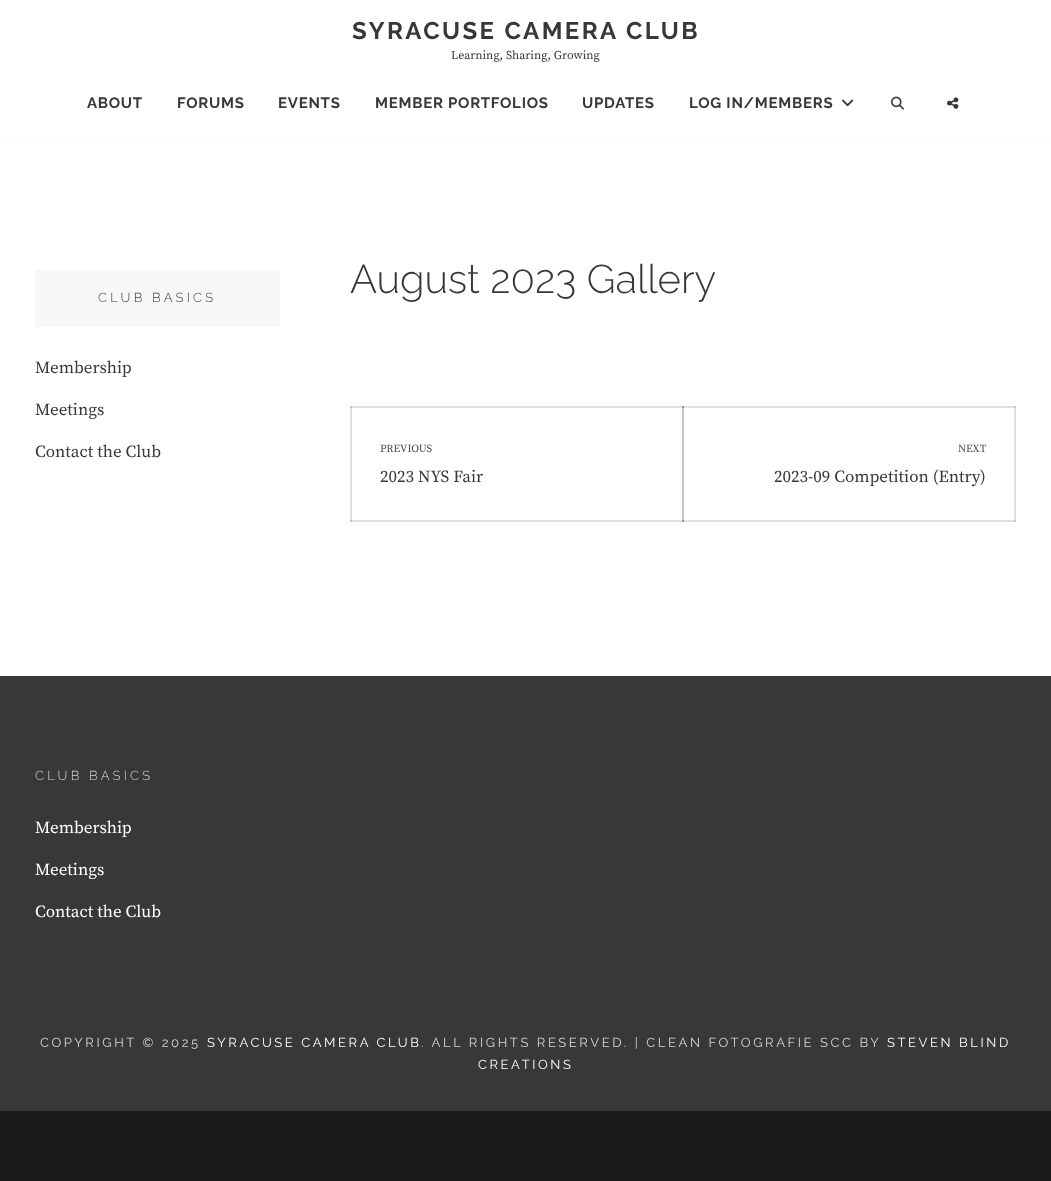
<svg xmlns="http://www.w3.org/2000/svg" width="1051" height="1181">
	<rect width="100%" height="100%" fill="#1A1A1A" />
	<rect x="0" y="138" width="1051" height="538" fill="#FFFFFF" />
	<rect x="350" y="406" width="2" height="116" fill="#E0E0E0" />
	<rect x="350" y="520" width="334" height="2" fill="#E0E0E0" />
	<rect x="350" y="520" width="2" height="2" fill="#C5C5C5" />
	<rect x="350" y="406" width="334" height="2" fill="#E0E0E0" />
	<rect x="350" y="406" width="2" height="2" fill="#C5C5C5" />
	<rect x="682" y="406" width="2" height="116" fill="#C5C5C5" />
	<rect x="682" y="520" width="334" height="2" fill="#E0E0E0" />
	<rect x="682" y="520" width="2" height="2" fill="#989898" />
	<rect x="1014" y="406" width="2" height="116" fill="#E0E0E0" />
	<rect x="1014" y="520" width="2" height="2" fill="#C5C5C5" />
	<rect x="0" y="0" width="1051" height="137" fill="#FFFFFF" />
	<rect x="0" y="137" width="1051" height="1" fill="#F7F7F7" />
	<text x="352" y="39" font-family="Raleway" font-size="24" font-weight="700" letter-spacing="2.4" fill="#383838">SYRACUSE CAMERA CLUB</text>
	<text x="451" y="59" font-family="Source Serif Pro" font-size="12" fill="#383838">Learning, Sharing, Growing</text>
	<g font-family="Raleway" font-size="15" font-weight="700" letter-spacing="0.75" fill="#383838">
		<text x="87" y="108">ABOUT</text>
		<text x="177" y="108">FORUMS</text>
		<text x="278" y="108">EVENTS</text>
		<text x="375" y="108">MEMBER PORTFOLIOS</text>
		<text x="582" y="108">UPDATES</text>
		<text x="689" y="108">LOG IN/MEMBERS</text>
	</g>
	<image x="842" y="99" width="12" height="8" href="assets/img1.png" />
	<image x="891" y="96" width="13" height="14" href="assets/img2.png" />
	<image x="947" y="97" width="12" height="12" href="assets/img3.png" />
	<rect x="35" y="270" width="245" height="57" fill="#F7F7F7" />
	<text x="98" y="302" font-family="Raleway" font-size="13" font-weight="300" letter-spacing="3.25" fill="#383838">CLUB BASICS</text>
	<g font-family="Source Serif Pro" font-size="17" fill="#383838">
		<text x="35" y="373">Membership</text>
		<text x="35" y="415">Meetings</text>
		<text x="35" y="457">Contact the Club</text>
	</g>
	<text x="350" y="293" font-family="Raleway" font-size="40" font-weight="300" fill="#383838">August 2023 Gallery</text>
	<text x="380" y="452" font-family="Source Serif Pro" font-size="11" fill="#4D4D4D">PREVIOUS</text>
	<text x="380" y="482" font-family="Source Serif Pro" font-size="17" fill="#383838">2023 NYS Fair</text>
	<rect x="682" y="406" width="334" height="2" fill="#E0E0E0" />
	<rect x="682" y="406" width="2" height="2" fill="#989898" />
	<rect x="1014" y="406" width="2" height="2" fill="#C5C5C5" />
	<text x="958" y="452" font-family="Source Serif Pro" font-size="11" fill="#4D4D4D">NEXT</text>
	<text x="774" y="482" font-family="Source Serif Pro" font-size="17" fill="#383838">2023-09 Competition (Entry)</text>
	<rect x="0" y="676" width="1051" height="435" fill="#383838" />
	<text x="35" y="780" font-family="Raleway" font-size="13" font-weight="300" letter-spacing="3.25" fill="#D6D6D6">CLUB BASICS</text>
	<g font-family="Source Serif Pro" font-size="17" fill="#FFFFFF">
		<text x="35" y="833">Membership</text>
		<text x="35" y="875">Meetings</text>
		<text x="35" y="917">Contact the Club</text>
	</g>
	<text x="40" y="1047" font-family="Raleway" font-size="13" letter-spacing="2.6" fill="#D6D6D6">COPYRIGHT © 2025</text>
	<text x="207" y="1047" font-family="Raleway" font-size="13" letter-spacing="2.6" fill="#FFFFFF">SYRACUSE CAMERA CLUB</text>
	<text x="421" y="1047" font-family="Raleway" font-size="13" letter-spacing="2.6" fill="#D6D6D6">. ALL RIGHTS RESERVED. | CLEAN FOTOGRAFIE SCC BY</text>
	<g font-family="Raleway" font-size="13" letter-spacing="2.6" fill="#FFFFFF">
		<text x="887" y="1047">STEVEN BLIND</text>
		<text x="478" y="1069">CREATIONS</text>
	</g>
</svg>
